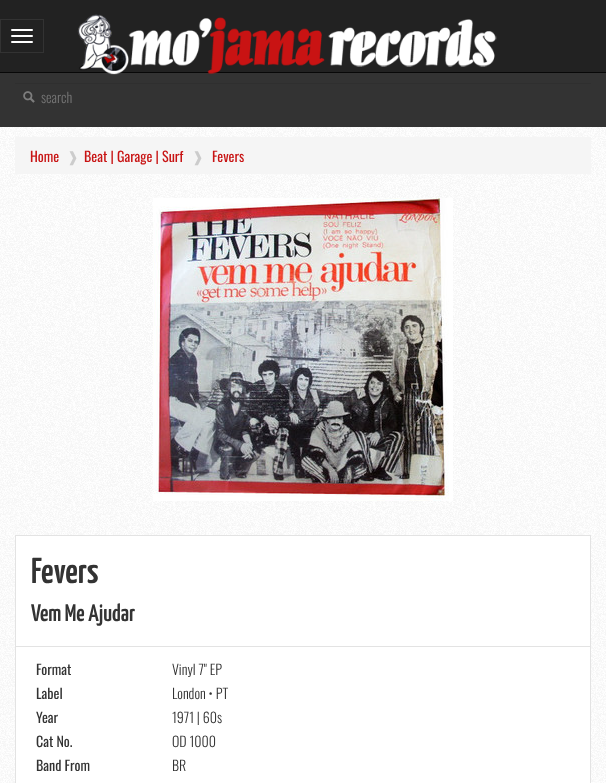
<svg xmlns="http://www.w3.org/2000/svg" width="606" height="783">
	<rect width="100%" height="100%" fill="#FFFFFF" />
	<image x="0" y="127" width="606" height="656" href="assets/img1.png" />
	<rect x="0" y="0" width="606" height="72" fill="#222222" />
	<rect x="0" y="72" width="606" height="1" fill="#080808" />
	<rect x="0.5" y="19.5" width="43" height="33" fill="none" stroke="#333333" />
	<rect x="11" y="29" width="22" height="2" rx="1" fill="#FFFFFF" />
	<rect x="11" y="35" width="22" height="2" rx="1" fill="#FFFFFF" />
	<rect x="11" y="41" width="22" height="2" rx="1" fill="#FFFFFF" />
	<rect x="0" y="73" width="606" height="54" fill="#333333" />
	<image x="77" y="14" width="420" height="61" href="assets/img2.png" />
	<image x="23" y="91" width="12" height="12" href="assets/img3.png" />
	<rect x="15" y="83" width="576" height="1" fill="#2F2F2F" />
	<text x="41" y="103" font-family="Oswald" font-size="14" font-weight="300" fill="#757575">search</text>
	<rect x="15" y="137" width="576" height="37" fill="#F5F5F5" />
	<text x="30" y="162" font-family="Oswald" font-size="14" fill="#C81414">Home</text>
	<text x="67" y="162" font-family="DejaVu Sans" font-size="14" fill="#CCCCCC">❱</text>
	<text x="84" y="162" font-family="Oswald" font-size="14" fill="#C81414">Beat | Garage | Surf</text>
	<text x="192" y="162" font-family="DejaVu Sans" font-size="14" fill="#CCCCCC">❱</text>
	<text x="212" y="162" font-family="Oswald" font-size="14" fill="#C81414">Fevers</text>
	<image x="153" y="198" width="300" height="303" href="assets/img4.png" />
	<rect x="15.5" y="535.5" width="575" height="111" fill="#FFFFFF" stroke="#E3E3E3" />
	<text x="31" y="583" font-family="Yanone Kaffeesatz" font-size="36" font-weight="600" fill="#333333">Fevers</text>
	<text x="31" y="621" font-family="Yanone Kaffeesatz" font-size="24" font-weight="600" fill="#333333">Vem Me Ajudar</text>
	<rect x="15.5" y="646.5" width="575" height="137" fill="#FFFFFF" stroke="#E3E3E3" />
	<text x="36" y="675" font-family="Oswald" font-size="14" fill="#333333">Format</text>
	<text x="172" y="675" font-family="Oswald" font-size="14" font-weight="300" fill="#333333">Vinyl 7" EP</text>
	<text x="36" y="699" font-family="Oswald" font-size="14" fill="#333333">Label</text>
	<text x="172" y="699" font-family="Oswald" font-size="14" font-weight="300" fill="#333333">London • PT</text>
	<text x="36" y="723" font-family="Oswald" font-size="14" fill="#333333">Year</text>
	<text x="172" y="723" font-family="Oswald" font-size="14" font-weight="300" fill="#333333">1971 | 60s</text>
	<text x="36" y="747" font-family="Oswald" font-size="14" fill="#333333">Cat No.</text>
	<text x="172" y="747" font-family="Oswald" font-size="14" font-weight="300" fill="#333333">OD 1000</text>
	<text x="36" y="771" font-family="Oswald" font-size="14" fill="#333333">Band From</text>
	<text x="172" y="771" font-family="Oswald" font-size="14" font-weight="300" fill="#333333">BR</text>
</svg>
